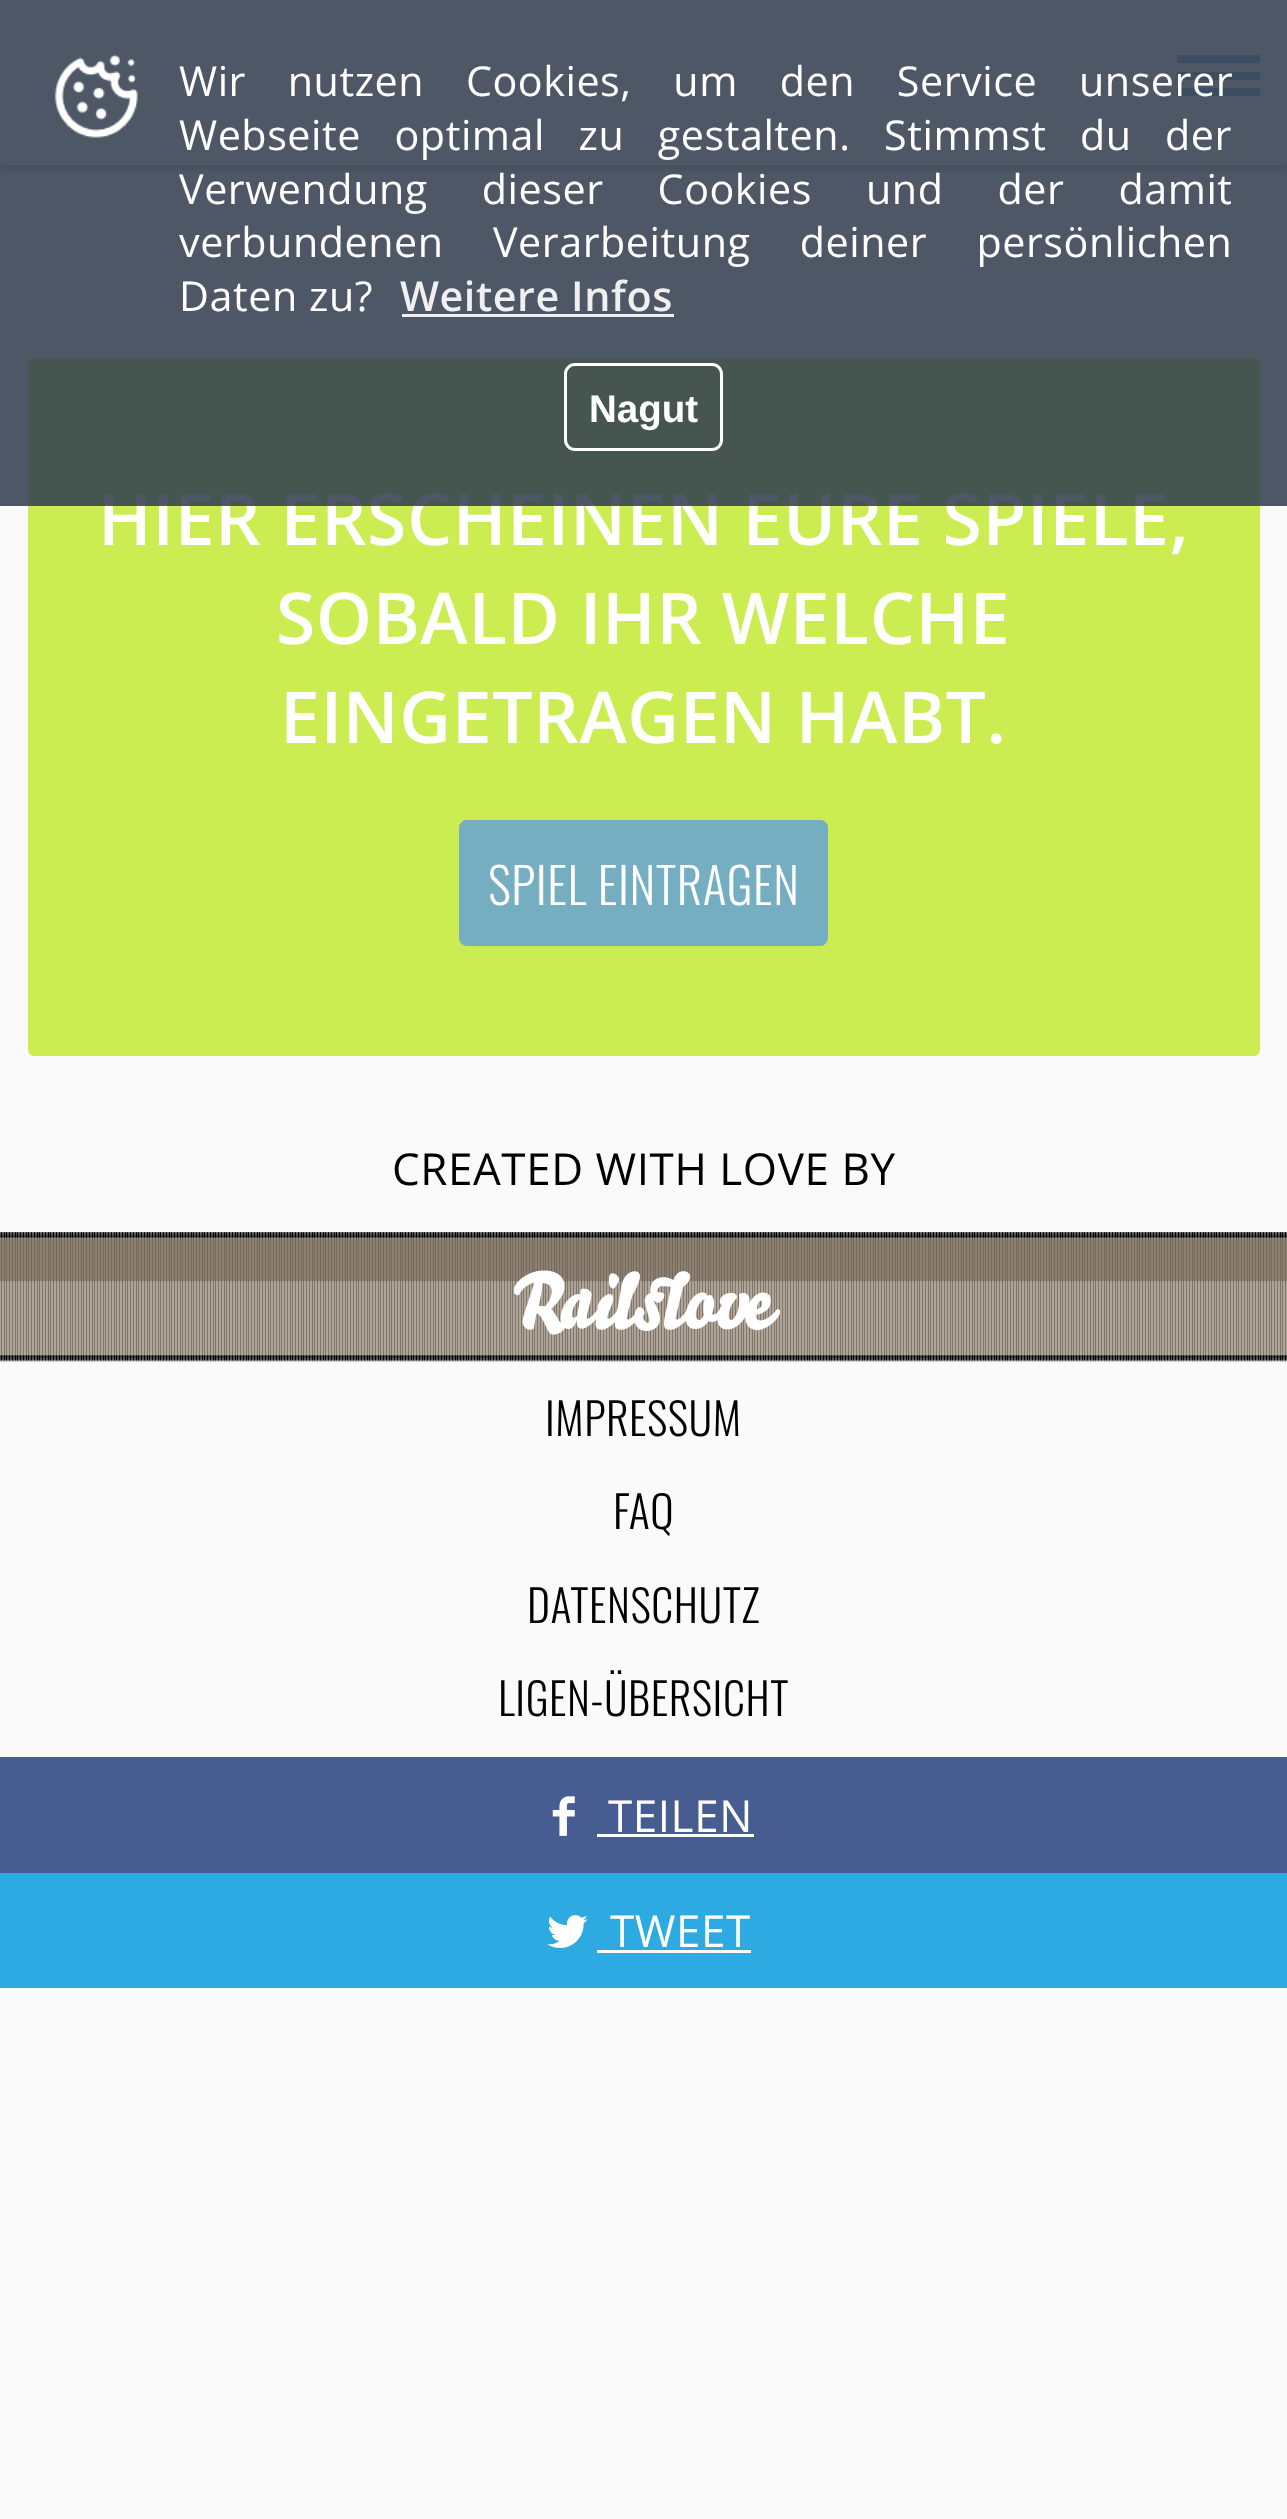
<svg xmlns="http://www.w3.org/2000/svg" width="1287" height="2519">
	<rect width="100%" height="100%" fill="#FAFAFA" />
	<rect x="0" y="3" width="1287" height="165" fill="#999999" filter="blur(4px)" />
	<rect x="0" y="0" width="1287" height="165" fill="#FFFFFF" />
	<rect x="1177" y="88" width="83" height="8" fill="#76AEC1" />
	<rect x="1177" y="72" width="83" height="8" fill="#76AEC1" />
	<rect x="1177" y="55" width="83" height="8" fill="#76AEC1" />
	<rect x="28" y="358" width="1232" height="698" rx="6" fill="#CBED52" />
	<text x="98" y="545" font-family="Open Sans" font-size="71.5" font-weight="600" letter-spacing="0.55" fill="#FFFFFF">HIER ERSCHEINEN EURE SPIELE,</text>
	<rect x="0" y="0" width="1287" height="506" fill="#344051" fill-opacity="0.88" />
	<image x="54" y="54" width="84" height="84" href="assets/img1.png" />
	<g font-family="Open Sans" font-size="41.25" letter-spacing="0.55" fill="#FFFFFF">
		<text x="179" y="96" word-spacing="30.5">Wir nutzen Cookies, um den Service unserer</text>
		<text x="179" y="150" word-spacing="22.25">Webseite optimal zu gestalten. Stimmst du der</text>
		<text x="179" y="204" word-spacing="42.75">Verwendung dieser Cookies und der damit</text>
		<text x="179" y="257" word-spacing="38">verbundenen Verarbeitung deiner persönlichen</text>
		<text x="179" y="311">Daten zu?</text>
	</g>
	<text x="400" y="311" font-family="Open Sans" font-size="41.25" font-weight="600" letter-spacing="0.55" fill="#F0F0F0">Weitere Infos</text>
	<rect x="402" y="314" width="272" height="3" fill="#F0F0F0" />
	<rect x="565.5" y="364.5" width="156" height="85" rx="9.5" fill="none" stroke="#FFFFFF" stroke-width="3" />
	<text x="589" y="422" font-family="Liberation Sans" font-size="38.5" font-weight="700" fill="#FFFFFF">Nagut</text>
	<g font-family="Open Sans" font-size="71.5" font-weight="600" letter-spacing="0.55" fill="#FFFFFF">
		<text x="276" y="644">SOBALD IHR WELCHE</text>
		<text x="280" y="743">EINGETRAGEN HABT.</text>
	</g>
	<rect x="459" y="820" width="369" height="126" rx="8" fill="#76AEC1" />
	<text x="488" y="905" font-family="Oswald" font-size="49.5" font-weight="300" letter-spacing="0.55" fill="#FFFFFF">SPIEL EINTRAGEN</text>
	<image x="0" y="1232" width="1287" height="130" href="assets/img2.png" />
	<text x="392" y="1185" font-family="Open Sans" font-size="44" letter-spacing="0.55" fill="#000000">CREATED WITH LOVE BY</text>
	<image x="513" y="1270" width="268" height="65" href="assets/img3.png" />
	<g font-family="Oswald" font-size="44" font-weight="300" letter-spacing="0.55" fill="#000000">
		<text x="545" y="1436">IMPRESSUM</text>
		<text x="613" y="1529">FAQ</text>
		<text x="527" y="1623">DATENSCHUTZ</text>
		<text x="498" y="1716">LIGEN-ÜBERSICHT</text>
	</g>
	<rect x="0" y="1757" width="1287" height="116" fill="#475C91" />
	<image x="552" y="1796" width="23" height="40" href="assets/img4.png" />
	<text x="608" y="1832" font-family="Open Sans" font-size="44" letter-spacing="0.55" fill="#FFFFFF">TEILEN</text>
	<rect x="597" y="1834" width="157" height="3" fill="#FFFFFF" />
	<rect x="0" y="1873" width="1287" height="115" fill="#2DAAE2" />
	<image x="547" y="1915" width="41" height="33" href="assets/img5.png" />
	<text x="610" y="1947" font-family="Open Sans" font-size="44" letter-spacing="0.55" fill="#FFFFFF">TWEET</text>
	<rect x="597" y="1950" width="154" height="3" fill="#FFFFFF" />
</svg>
